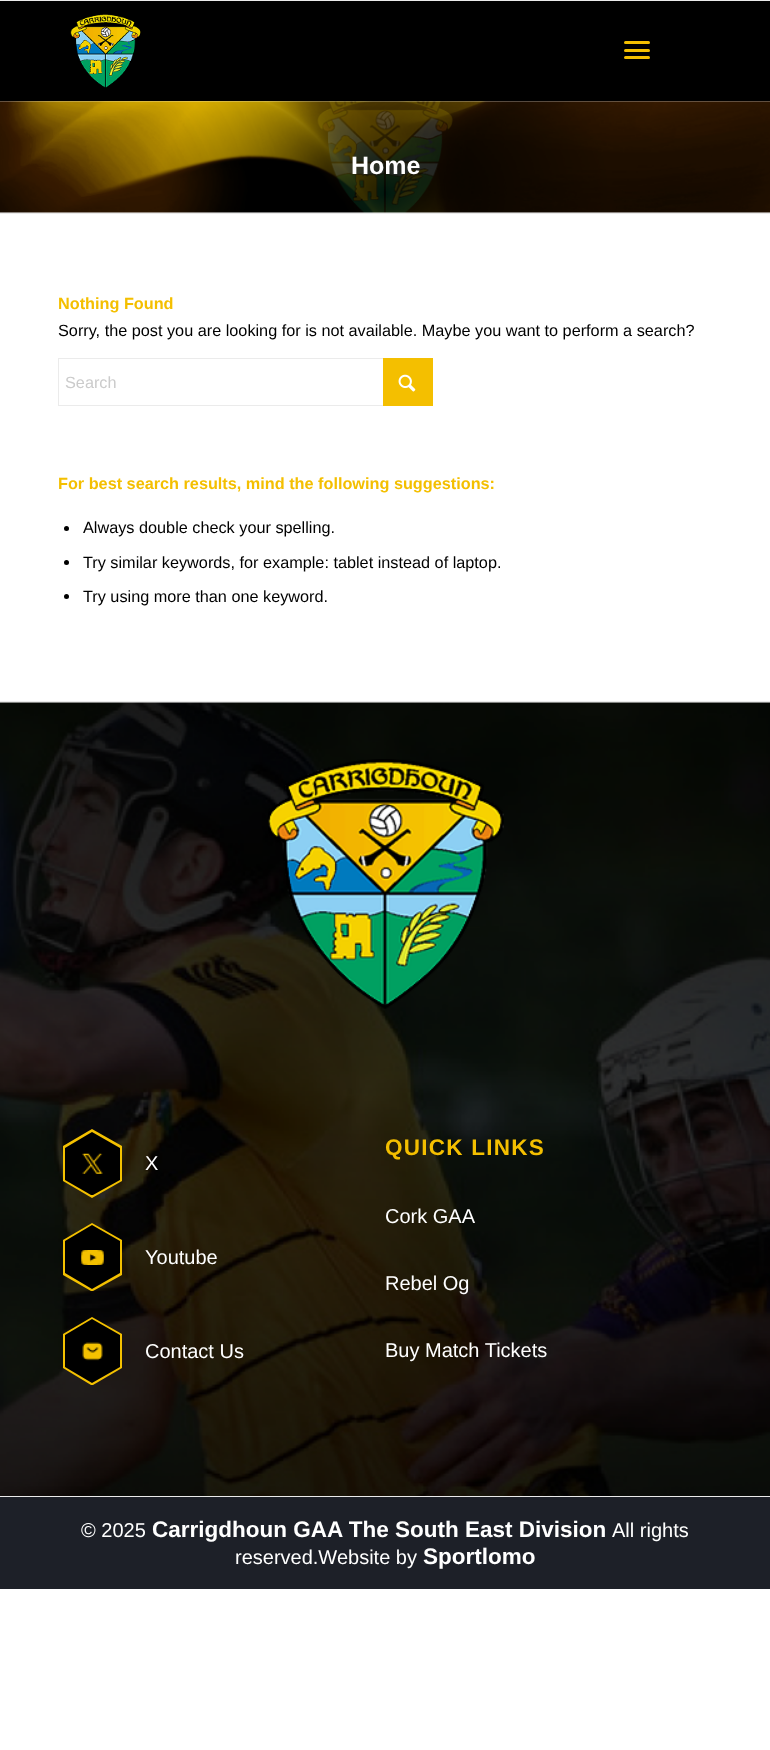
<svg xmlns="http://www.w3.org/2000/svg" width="770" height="1750">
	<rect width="100%" height="100%" fill="#FFFFFF" />
	<rect x="0" y="1" width="770" height="100" fill="#000000" />
	<rect x="0" y="0" width="770" height="1" fill="#EBEBEB" />
	<image x="70" y="14" width="71" height="74" href="assets/img1.png" />
	<rect x="624" y="49" width="26" height="3" rx="1.5" fill="#F4BF00" />
	<rect x="624" y="41" width="26" height="3" rx="1.5" fill="#F4BF00" />
	<rect x="624" y="56" width="26" height="3" rx="1.5" fill="#F4BF00" />
	<image x="0" y="101" width="770" height="112" href="assets/img2.png" />
	<text x="351" y="174" font-family="Liberation Sans" font-size="25" font-weight="700" fill="#FFFFFF">Home</text>
	<rect x="0" y="213" width="770" height="1" fill="#EBEBEB" />
	<text x="58" y="309" font-family="Liberation Sans" font-size="16.25" font-weight="700" fill="#F4BF00">Nothing Found</text>
	<text x="58" y="336" font-family="Liberation Sans" font-size="16.25" fill="#000000">Sorry, the post you are looking for is not available. Maybe you want to perform a search?</text>
	<rect x="58.5" y="358.5" width="374" height="47" fill="none" stroke="#EBEBEB" />
	<rect x="383" y="358" width="50" height="48" fill="#F4BF00" />
	<text x="65" y="388" font-family="Liberation Sans" font-size="16.25" fill="#CBCBCB">Search</text>
	<image x="398" y="374" width="18" height="18" href="assets/img3.png" />
	<text x="58" y="489" font-family="Liberation Sans" font-size="16.25" font-weight="700" fill="#F4BF00">For best search results, mind the following suggestions:</text>
	<circle cx="66.5" cy="528.5" r="2.5" fill="#000000" />
	<text x="83" y="533" font-family="Liberation Sans" font-size="16.25" fill="#000000">Always double check your spelling.</text>
	<circle cx="66.5" cy="562.5" r="2.5" fill="#000000" />
	<text x="83" y="568" font-family="Liberation Sans" font-size="16.25" fill="#000000">Try similar keywords, for example: tablet instead of laptop.</text>
	<circle cx="66.5" cy="596.5" r="2.5" fill="#000000" />
	<text x="83" y="602" font-family="Liberation Sans" font-size="16.25" fill="#000000">Try using more than one keyword.</text>
	<image x="0" y="702" width="770" height="794" href="assets/img4.png" />
	<rect x="0" y="701" width="770" height="1" fill="#EBEBEB" />
	<image x="268" y="759" width="236" height="250" href="assets/img5.png" />
	<path d="M92 1129L63 1146V1181L92 1198L122 1181V1146Z" fill="#F4C100" />
	<path d="M92 1132L120 1148V1180L93 1195H91L65 1180V1148Z" fill="#000000" />
	<image x="82" y="1153" width="21" height="21" href="assets/img6.png" />
	<text x="145" y="1170" font-family="Liberation Sans" font-size="20" fill="#FFFFFF">X</text>
	<path d="M91 1291L63 1275V1240L92 1223L122 1240V1275L93 1291Z" fill="#F4C100" />
	<path d="M92 1225L120 1241V1273L92 1289L65 1273V1241Z" fill="#000000" />
	<image x="81" y="1250" width="23" height="15" href="assets/img7.png" />
	<text x="145" y="1264" font-family="Liberation Sans" font-size="20" fill="#FFFFFF">Youtube</text>
	<path d="M92 1317L122 1334V1368L93 1385H91L63 1368V1334Z" fill="#F4C100" />
	<path d="M92 1319L65 1335V1367L92 1383L120 1367V1335Z" fill="#000000" />
	<image x="82" y="1342" width="21" height="19" href="assets/img8.png" />
	<text x="145" y="1358" font-family="Liberation Sans" font-size="20" fill="#FFFFFF">Contact Us</text>
	<text x="385" y="1155" font-family="Liberation Sans" font-size="22.5" font-weight="700" letter-spacing="1.25" fill="#F4BF00">QUICK LINKS</text>
	<g font-family="Liberation Sans" font-size="20" fill="#FFFFFF">
		<text x="385" y="1223">Cork GAA</text>
		<text x="385" y="1290">Rebel Og</text>
		<text x="385" y="1357">Buy Match Tickets</text>
	</g>
	<rect x="0" y="1497" width="770" height="92" fill="#1D2028" />
	<rect x="0" y="1496" width="770" height="1" fill="#EBEBEB" />
	<text x="81" y="1537" font-family="Liberation Sans" font-size="20" fill="#FFFFFF">© 2025</text>
	<text x="152" y="1537" font-family="Liberation Sans" font-size="22.5" font-weight="700" fill="#FFFFFF">Carrigdhoun GAA The South East Division</text>
	<g font-family="Liberation Sans" font-size="20" fill="#FFFFFF">
		<text x="612" y="1537">All rights</text>
		<text x="235" y="1564">reserved.Website by</text>
	</g>
	<text x="423" y="1564" font-family="Liberation Sans" font-size="22.5" font-weight="700" fill="#FFFFFF">Sportlomo</text>
</svg>
